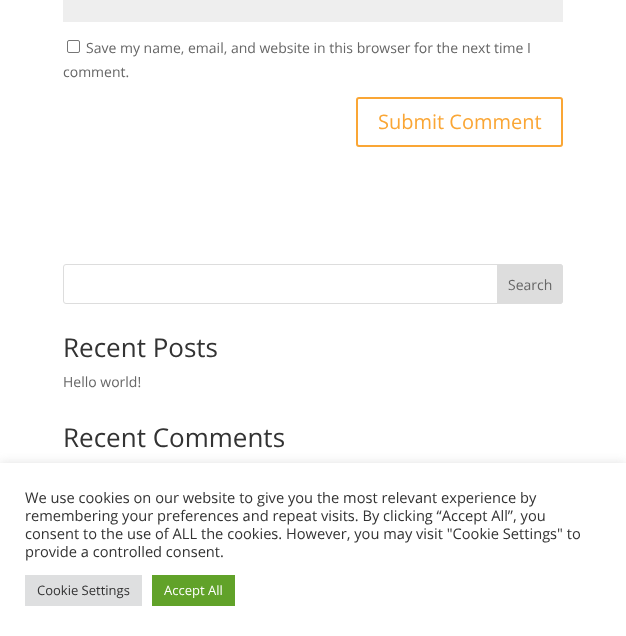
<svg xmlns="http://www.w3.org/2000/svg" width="626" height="636">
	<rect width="100%" height="100%" fill="#FFFFFF" />
	<rect x="63" y="0" width="500" height="22" fill="#EEEEEE" />
	<rect x="67.5" y="40.5" width="12" height="12" rx="1.5" fill="none" stroke="#767676" />
	<g font-family="Open Sans" font-size="14" fill="#666666">
		<text x="86" y="53">Save my name, email, and website in this browser for the next time I</text>
		<text x="63" y="77">comment.</text>
	</g>
	<rect x="357" y="98" width="205" height="48" rx="2" fill="none" stroke="#FAA635" stroke-width="2" />
	<text x="378" y="129" font-family="Open Sans" font-size="20" fill="#FAA635">Submit Comment</text>
	<rect x="63.5" y="264.5" width="499" height="39" rx="2.5" fill="none" stroke="#DDDDDD" />
	<path d="M497.5 264.5H560C561.5 264.5 562.5 265.5 562.5 267V301C562.5 302.5 561.5 303.5 560 303.5H497.5Z" fill="#DDDDDD" stroke="#DDDDDD" />
	<text x="508" y="290" font-family="Open Sans" font-size="14" fill="#666666">Search</text>
	<text x="63" y="357" font-family="Open Sans" font-size="26" fill="#333333">Recent Posts</text>
	<text x="63" y="387" font-family="Open Sans" font-size="14" fill="#666666">Hello world!</text>
	<text x="63" y="447" font-family="Open Sans" font-size="26" fill="#333333">Recent Comments</text>
	<rect x="0" y="462" width="626" height="173" fill="#ACABAB" fill-opacity="0.3" filter="blur(5px)" />
	<rect x="0" y="463" width="626" height="173" fill="#FFFFFF" />
	<g font-family="Open Sans" font-size="14.65" fill="#333333">
		<text x="25" y="503">We use cookies on our website to give you the most relevant experience by</text>
		<text x="25" y="521">remembering your preferences and repeat visits. By clicking “Accept All”, you</text>
		<text x="25" y="539">consent to the use of ALL the cookies. However, you may visit "Cookie Settings" to</text>
		<text x="25" y="557">provide a controlled consent.</text>
	</g>
	<rect x="25" y="575" width="117" height="31" fill="#DEDFE0" />
	<text x="37" y="595" font-family="Open Sans" font-size="13" fill="#333333">Cookie Settings</text>
	<rect x="152" y="575" width="83" height="31" fill="#61A229" />
	<text x="164" y="595" font-family="Open Sans" font-size="13" fill="#FFFFFF">Accept All</text>
</svg>
